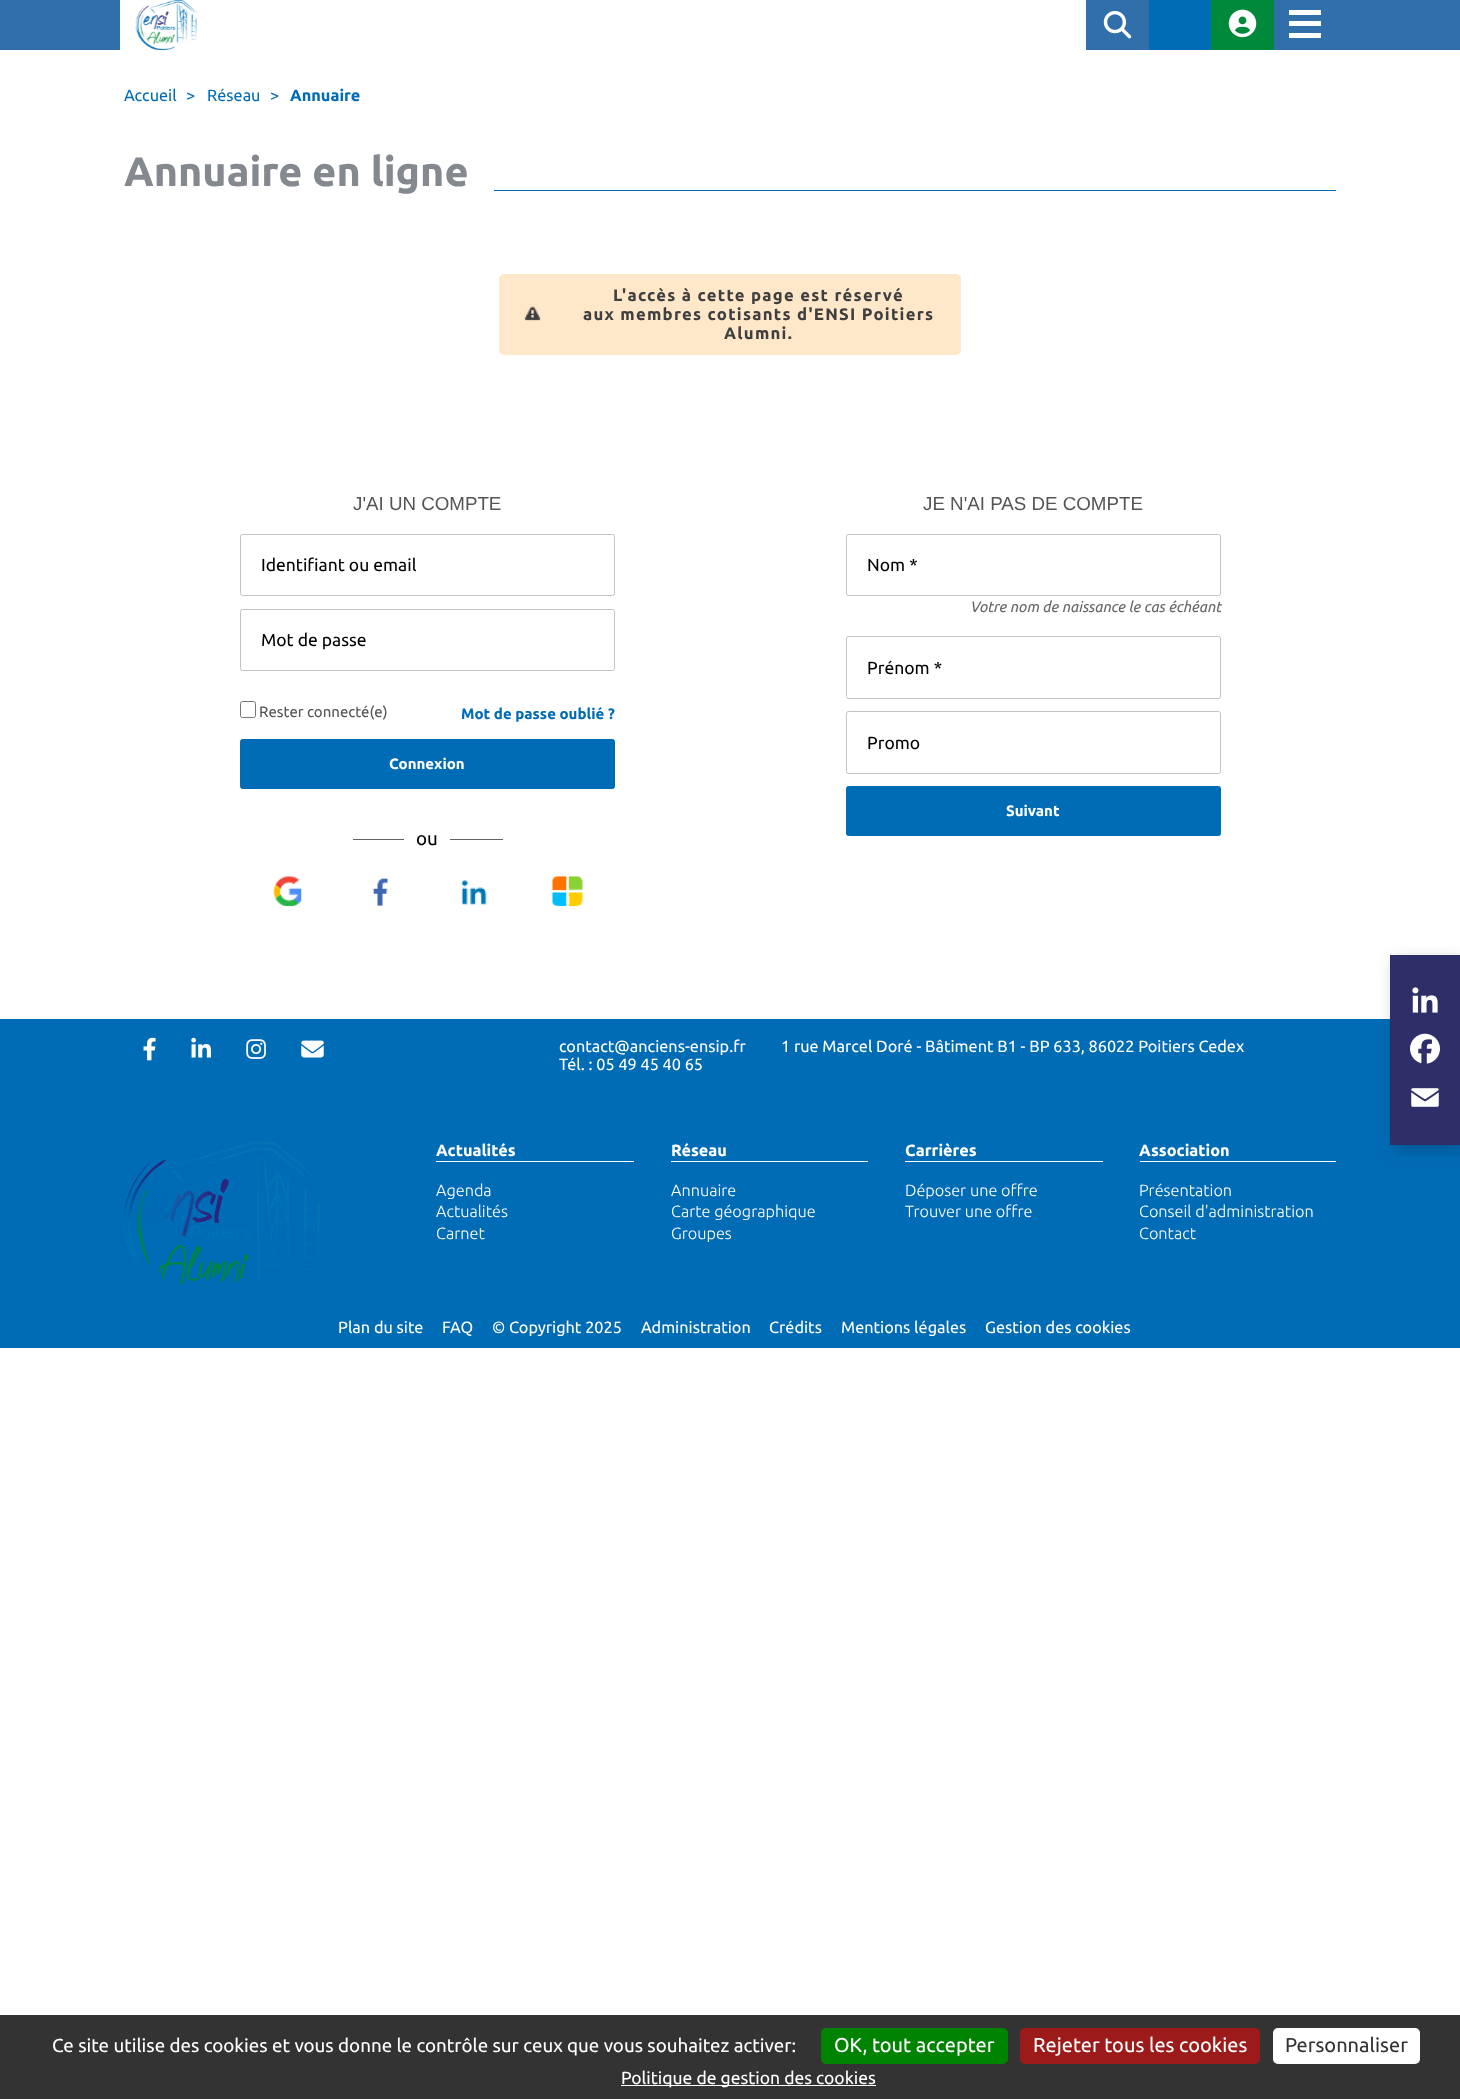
<svg xmlns="http://www.w3.org/2000/svg" width="1460" height="2099">
	<rect width="100%" height="100%" fill="#FFFFFF" />
	<rect x="0" y="0" width="1460" height="50" fill="#306FA9" />
	<rect x="120" y="0" width="966" height="50" fill="#FFFFFF" />
	<image x="135" y="0" width="63" height="50" href="assets/img1.png" />
	<image x="1103" y="10" width="29" height="29" href="assets/img2.png" />
	<rect x="1149" y="0" width="62" height="50" fill="#006CB5" />
	<rect x="1211" y="0" width="63" height="50" fill="#00883B" />
	<image x="1228" y="9" width="29" height="29" href="assets/img3.png" />
	<rect x="1289" y="10" width="32" height="5" fill="#FFFFFF" />
	<rect x="1289" y="21" width="32" height="5" fill="#FFFFFF" />
	<rect x="1289" y="33" width="32" height="5" fill="#FFFFFF" />
	<g font-family="Ubuntu" font-size="16.25" fill="#006CB5">
		<text x="124" y="101">Accueil</text>
		<text x="186" y="101">&gt;</text>
		<text x="207" y="101">Réseau</text>
		<text x="270" y="101">&gt;</text>
	</g>
	<text x="290" y="101" font-family="Ubuntu" font-size="16.25" font-weight="700" fill="#006CB5">Annuaire</text>
	<text x="124" y="186" font-family="Ubuntu" font-size="41.25" font-weight="700" fill="#848990">Annuaire en ligne</text>
	<rect x="494" y="190" width="842" height="1" fill="#006CB5" />
	<rect x="499" y="274" width="462" height="81" rx="5" fill="#FFE7C9" />
	<image x="524" y="306" width="17" height="15" href="assets/img4.png" />
	<g font-family="Ubuntu" font-size="16.7" font-weight="700" letter-spacing="1.25" fill="#3F3F3F">
		<text x="613" y="301">L'accès à cette page est réservé</text>
		<text x="583" y="320">aux membres cotisants d'ENSI Poitiers</text>
		<text x="724" y="339">Alumni.</text>
	</g>
	<text x="353" y="510" font-family="Liberation Sans" font-size="18.75" fill="#555555">J'AI UN COMPTE</text>
	<rect x="240.5" y="534.5" width="374" height="61" rx="2" fill="none" stroke="#C3C3C3" />
	<text x="261" y="571" font-family="Ubuntu" font-size="17.5" fill="#000000">Identifiant ou email</text>
	<rect x="240.5" y="609.5" width="374" height="61" rx="2" fill="none" stroke="#C3C3C3" />
	<text x="261" y="646" font-family="Ubuntu" font-size="17.5" fill="#000000">Mot de passe</text>
	<rect x="240.5" y="701.5" width="15" height="16" rx="2" fill="none" stroke="#767676" />
	<text x="259" y="717" font-family="Ubuntu" font-size="15" fill="#555555">Rester connecté(e)</text>
	<text x="461" y="719" font-family="Ubuntu" font-size="15" font-weight="700" fill="#006CB5">Mot de passe oublié ?</text>
	<rect x="240.5" y="739.5" width="374" height="49" rx="2" fill="#006CB5" stroke="#006CB5" />
	<text x="389" y="769" font-family="Ubuntu" font-size="15" font-weight="700" fill="#FFFFFF">Connexion</text>
	<rect x="353" y="839" width="150" height="1" fill="#626262" />
	<rect x="404" y="839" width="46" height="1" fill="#FFFFFF" />
	<text x="416" y="845" font-family="Ubuntu" font-size="18.75" fill="#000000">ou</text>
	<image x="273" y="876" width="29" height="31" href="assets/img5.png" />
	<image x="372" y="877" width="16" height="30" href="assets/img6.png" />
	<image x="461" y="879" width="26" height="27" href="assets/img7.png" />
	<image x="552" y="876" width="31" height="31" href="assets/img8.png" />
	<text x="923" y="510" font-family="Liberation Sans" font-size="18.75" fill="#555555">JE N'AI PAS DE COMPTE</text>
	<rect x="846.5" y="534.5" width="374" height="61" rx="2" fill="none" stroke="#C3C3C3" />
	<text x="867" y="571" font-family="Ubuntu" font-size="17.5" fill="#000000">Nom *</text>
	<text x="970" y="612" font-family="Ubuntu" font-size="15" font-style="italic" fill="#666666">Votre nom de naissance le cas échéant</text>
	<rect x="846.5" y="636.5" width="374" height="62" rx="2" fill="none" stroke="#C3C3C3" />
	<text x="867" y="674" font-family="Ubuntu" font-size="17.5" fill="#000000">Prénom *</text>
	<rect x="846.5" y="711.5" width="374" height="62" rx="2" fill="none" stroke="#C3C3C3" />
	<text x="867" y="749" font-family="Ubuntu" font-size="17.5" fill="#000000">Promo</text>
	<rect x="846.5" y="786.5" width="374" height="49" rx="2" fill="#006CB5" stroke="#006CB5" />
	<text x="1006" y="816" font-family="Ubuntu" font-size="15" font-weight="700" fill="#FFFFFF">Suivant</text>
	<rect x="0" y="1019" width="1390" height="72" fill="#006CB5" />
	<image x="143" y="1037" width="13" height="24" href="assets/img9.png" />
	<image x="191" y="1037" width="20" height="21" href="assets/img10.png" />
	<image x="246" y="1039" width="20" height="20" href="assets/img11.png" />
	<image x="301" y="1040" width="23" height="18" href="assets/img12.png" />
	<g font-family="Ubuntu" font-size="16.25" fill="#FFFFFF">
		<text x="559" y="1052">contact@anciens-ensip.fr</text>
		<text x="781" y="1052">1 rue Marcel Doré - Bâtiment B1 - BP 633, 86022 Poitiers Cedex</text>
		<text x="559" y="1070">Tél. : 05 49 45 40 65</text>
	</g>
	<rect x="0" y="1091" width="1460" height="257" fill="#006CB5" />
	<image x="124" y="1141" width="196" height="144" href="assets/img13.png" />
	<rect x="436" y="1161" width="198" height="1" fill="#FFFFFF" />
	<text x="436" y="1156" font-family="Ubuntu" font-size="16.25" font-weight="700" fill="#FFFFFF">Actualités</text>
	<g font-family="Ubuntu" font-size="16.25" font-weight="300" fill="#FFFFFF">
		<text x="436" y="1196">Agenda</text>
		<text x="436" y="1217">Actualités</text>
		<text x="436" y="1239">Carnet</text>
	</g>
	<rect x="671" y="1161" width="197" height="1" fill="#FFFFFF" />
	<text x="671" y="1156" font-family="Ubuntu" font-size="16.25" font-weight="700" fill="#FFFFFF">Réseau</text>
	<g font-family="Ubuntu" font-size="16.25" font-weight="300" fill="#FFFFFF">
		<text x="671" y="1196">Annuaire</text>
		<text x="671" y="1217">Carte géographique</text>
		<text x="671" y="1239">Groupes</text>
	</g>
	<rect x="905" y="1161" width="198" height="1" fill="#FFFFFF" />
	<text x="905" y="1156" font-family="Ubuntu" font-size="16.25" font-weight="700" fill="#FFFFFF">Carrières</text>
	<g font-family="Ubuntu" font-size="16.25" font-weight="300" fill="#FFFFFF">
		<text x="905" y="1196">Déposer une offre</text>
		<text x="905" y="1217">Trouver une offre</text>
	</g>
	<rect x="1140" y="1161" width="196" height="1" fill="#FFFFFF" />
	<text x="1139" y="1156" font-family="Ubuntu" font-size="16.25" font-weight="700" fill="#FFFFFF">Association</text>
	<g font-family="Ubuntu" font-size="16.25" font-weight="300" fill="#FFFFFF">
		<text x="1139" y="1196">Présentation</text>
		<text x="1139" y="1217">Conseil d'administration</text>
		<text x="1139" y="1239">Contact</text>
	</g>
	<g font-family="Ubuntu" font-size="16.25" fill="#FFFFFF">
		<text x="338" y="1333">Plan du site</text>
		<text x="442" y="1333">FAQ</text>
		<text x="492" y="1333">© Copyright 2025</text>
		<text x="641" y="1333">Administration</text>
		<text x="769" y="1333">Crédits</text>
		<text x="841" y="1333">Mentions légales</text>
		<text x="985" y="1333">Gestion des cookies</text>
	</g>
	<rect x="1394" y="960" width="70" height="190" fill="#000000" fill-opacity="0.22" filter="blur(8px)" />
	<rect x="1390" y="955" width="70" height="190" fill="#2E2F68" />
	<image x="1412" y="987" width="26" height="26" href="assets/img14.png" />
	<image x="1410" y="1033" width="30" height="31" href="assets/img15.png" />
	<image x="1411" y="1088" width="28" height="19" href="assets/img16.png" />
	<rect x="0" y="2015" width="1460" height="84" fill="#333333" />
	<text x="52" y="2052" font-family="Ubuntu" font-size="18.75" fill="#FFFFFF">Ce site utilise des cookies et vous donne le contrôle sur ceux que vous souhaitez activer:</text>
	<rect x="821" y="2028" width="187" height="36" rx="5" fill="#008300" />
	<text x="834" y="2052" font-family="Ubuntu" font-size="20" fill="#FFFFFF">OK, tout accepter</text>
	<rect x="1020" y="2028" width="240" height="36" rx="5" fill="#9C1A1A" />
	<text x="1033" y="2052" font-family="Ubuntu" font-size="20" fill="#FFFFFF">Rejeter tous les cookies</text>
	<rect x="1273" y="2028" width="147" height="36" rx="5" fill="#FFFFFF" />
	<text x="1285" y="2052" font-family="Ubuntu" font-size="20" fill="#333333">Personnaliser</text>
	<rect x="621" y="2085" width="255" height="1" fill="#FFFFFF" />
	<text x="621" y="2084" font-family="Ubuntu" font-size="17.5" fill="#FFFFFF">Politique de gestion des cookies</text>
</svg>
